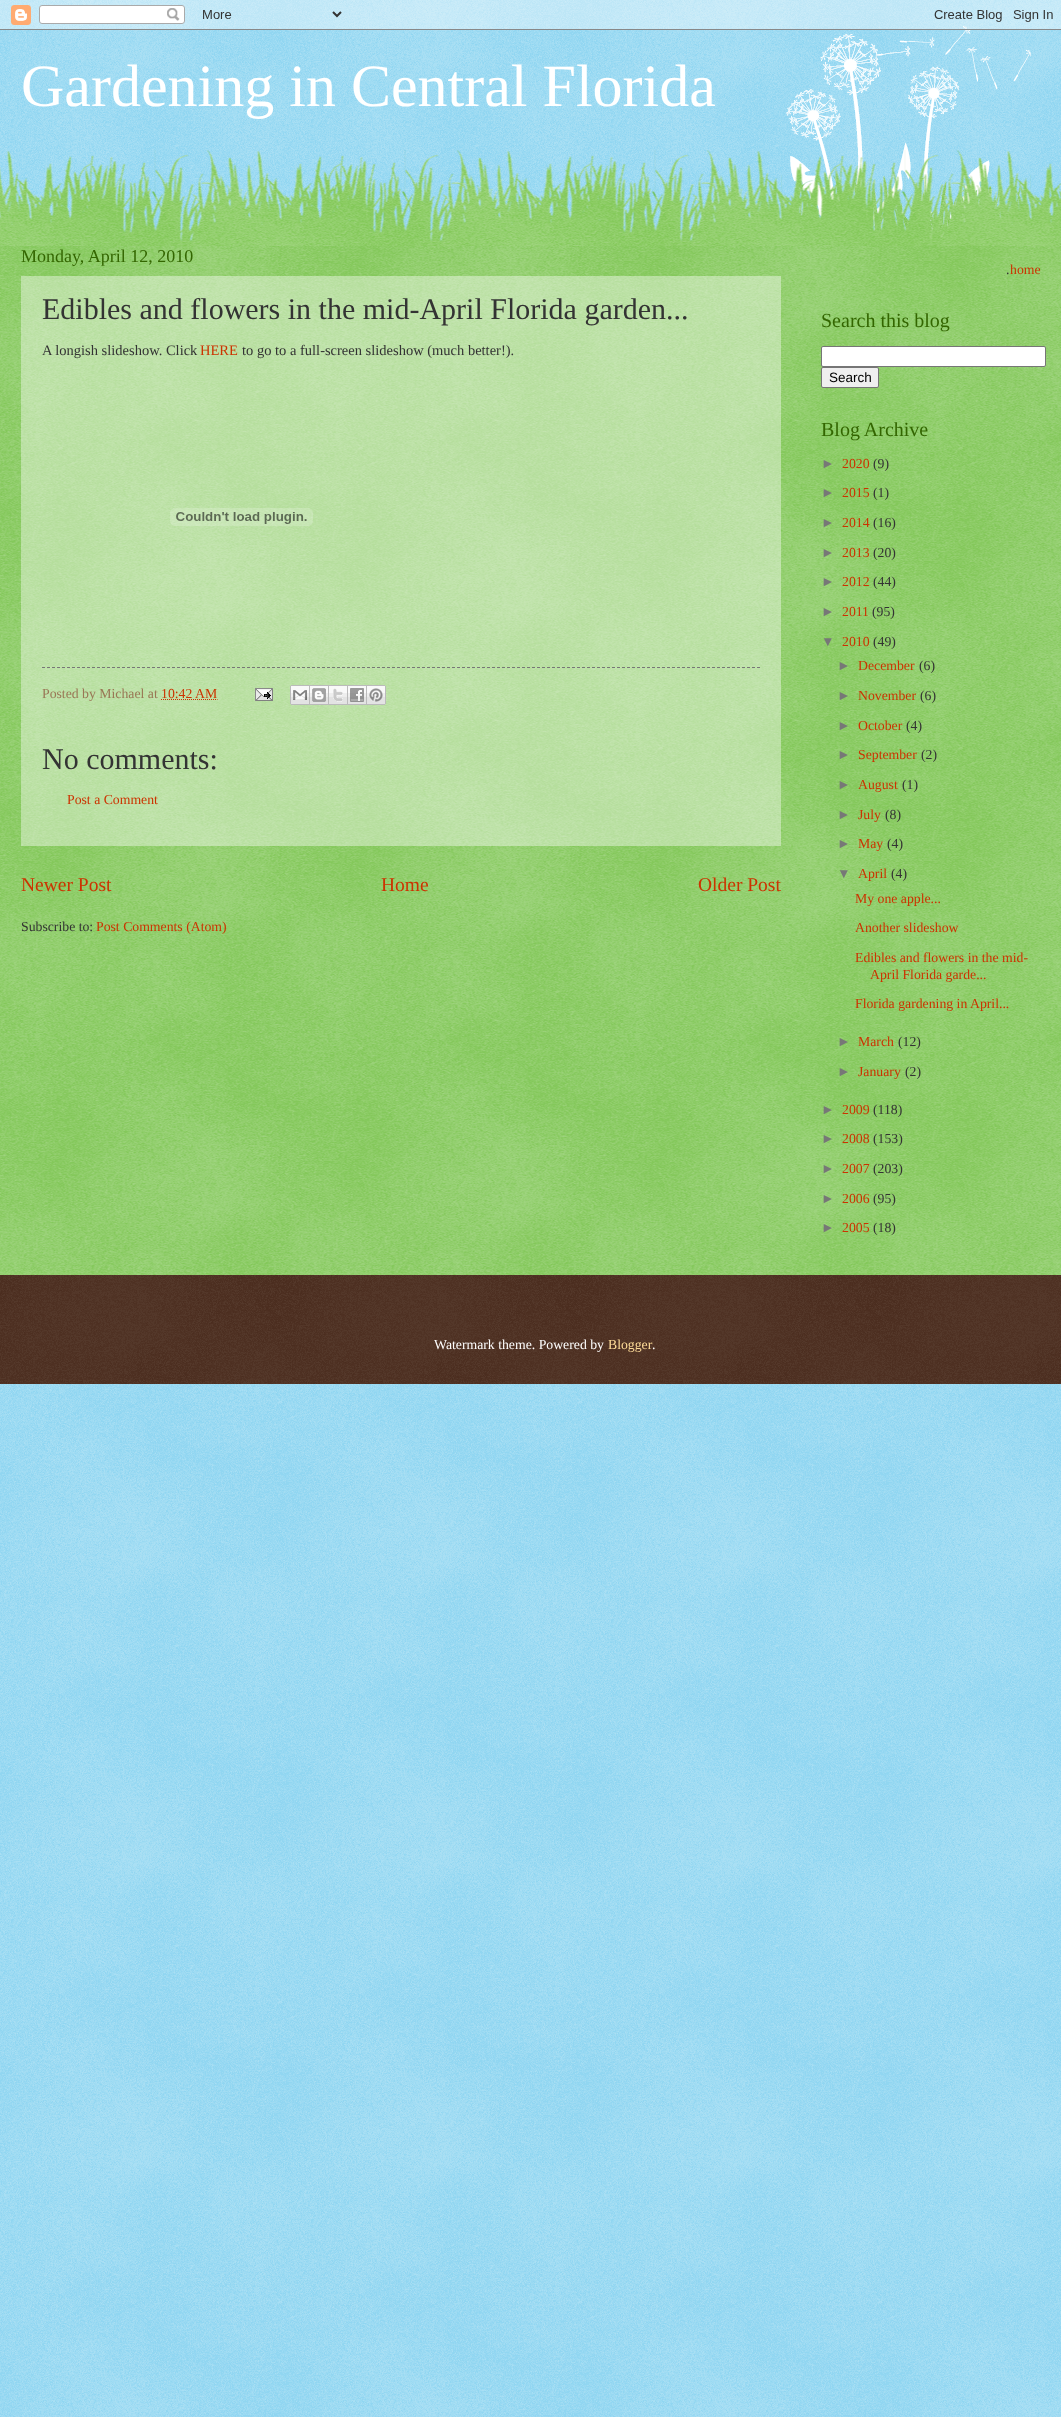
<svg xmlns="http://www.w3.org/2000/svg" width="1061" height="2417">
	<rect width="100%" height="100%" fill="#77CCEE" />
	<image x="0" y="0" width="1061" height="2417" href="assets/img1.png" />
	<image x="781" y="26" width="250" height="215" href="assets/img4.png" />
	<image x="0" y="0" width="1061" height="30" href="assets/img2.png" />
	<text x="21" y="106" font-family="Liberation Serif" font-size="60" fill="#FFFFFF">Gardening in Central Florida</text>
	<rect x="0" y="246" width="1061" height="1029" fill="#66BB33" />
	<image x="0" y="246" width="1061" height="1029" href="assets/img3.png" />
	<image x="0" y="150" width="1061" height="96" href="assets/img5.png" />
	<text x="21" y="262" font-family="Liberation Serif" font-size="18" fill="#336600">Monday, April 12, 2010</text>
	<rect x="21" y="276" width="760" height="570" fill="#FFFFFF" fill-opacity="0.4" />
	<text x="42" y="319" font-family="Liberation Serif" font-size="30" fill="#333333">Edibles and flowers in the mid-April Florida garden...</text>
	<text x="42" y="355" font-family="Liberation Serif" font-size="14.5" fill="#333333">A longish slideshow. Click</text>
	<text x="200" y="355" font-family="Liberation Serif" font-size="14.5" fill="#CC3300">HERE</text>
	<text x="242" y="355" font-family="Liberation Serif" font-size="14.5" fill="#333333">to go to a full-screen slideshow (much better!).</text>
	<image x="170" y="508" width="143" height="18" href="assets/img6.png" />
	<path d="M42 667.5H760" fill="none" stroke="#777777" stroke-dasharray="3 2" />
	<text x="42" y="698" font-family="Liberation Serif" font-size="13.75" fill="#997755">Posted by Michael at</text>
	<text x="161" y="698" font-family="Liberation Serif" font-size="13.75" fill="#CC3300">10:42 AM</text>
	<path d="M161 699.5H217.5" fill="none" stroke="#CC3300" stroke-dasharray="1 1" />
	<image x="255" y="688" width="18" height="13" href="assets/img7.png" />
	<image x="290" y="685" width="20" height="20" href="assets/img8.png" />
	<image x="310" y="685" width="19" height="20" href="assets/img9.png" />
	<image x="329" y="685" width="19" height="20" href="assets/img10.png" />
	<image x="348" y="685" width="19" height="20" href="assets/img11.png" />
	<image x="367" y="685" width="19" height="20" href="assets/img12.png" />
	<text x="42" y="769" font-family="Liberation Serif" font-size="30" fill="#333333">No comments:</text>
	<text x="67" y="804" font-family="Liberation Serif" font-size="13.75" fill="#CC3300">Post a Comment</text>
	<g font-family="Liberation Serif" font-size="19.5" fill="#CC3300">
		<text x="21" y="891">Newer Post</text>
		<text x="381" y="891">Home</text>
		<text x="698" y="891">Older Post</text>
	</g>
	<text x="21" y="931" font-family="Liberation Serif" font-size="13.75" fill="#333333">Subscribe to:</text>
	<text x="96" y="931" font-family="Liberation Serif" font-size="13.75" fill="#CC3300">Post Comments (Atom)</text>
	<text x="1006" y="274" font-family="Liberation Serif" font-size="13.75" fill="#333333">.</text>
	<text x="1010" y="274" font-family="Liberation Serif" font-size="13.75" fill="#CC3300">home</text>
	<text x="821" y="327" font-family="Liberation Serif" font-size="20" fill="#336600">Search this blog</text>
	<rect x="821.5" y="346.5" width="224" height="20" rx="1.5" fill="#FFFFFF" stroke="#767676" />
	<rect x="821.5" y="367.5" width="57" height="20" rx="1.5" fill="#EFEFEF" stroke="#767676" />
	<text x="829" y="382" font-family="Liberation Sans" font-size="13.5" fill="#000000">Search</text>
	<text x="821" y="436" font-family="Liberation Serif" font-size="20" fill="#336600">Blog Archive</text>
	<text x="821" y="468" font-family="Liberation Sans" font-size="13.75" fill="#777777">►</text>
	<text x="842" y="468" font-family="Liberation Serif" font-size="13.75" fill="#CC3300">2020</text>
	<text x="873" y="468" font-family="Liberation Serif" font-size="13.75" fill="#333333">(9)</text>
	<text x="821" y="497" font-family="Liberation Sans" font-size="13.75" fill="#777777">►</text>
	<text x="842" y="497" font-family="Liberation Serif" font-size="13.75" fill="#CC3300">2015</text>
	<text x="873" y="497" font-family="Liberation Serif" font-size="13.75" fill="#333333">(1)</text>
	<text x="821" y="527" font-family="Liberation Sans" font-size="13.75" fill="#777777">►</text>
	<text x="842" y="527" font-family="Liberation Serif" font-size="13.75" fill="#CC3300">2014</text>
	<text x="873" y="527" font-family="Liberation Serif" font-size="13.75" fill="#333333">(16)</text>
	<text x="821" y="557" font-family="Liberation Sans" font-size="13.75" fill="#777777">►</text>
	<text x="842" y="557" font-family="Liberation Serif" font-size="13.75" fill="#CC3300">2013</text>
	<text x="873" y="557" font-family="Liberation Serif" font-size="13.75" fill="#333333">(20)</text>
	<text x="821" y="586" font-family="Liberation Sans" font-size="13.75" fill="#777777">►</text>
	<text x="842" y="586" font-family="Liberation Serif" font-size="13.75" fill="#CC3300">2012</text>
	<text x="873" y="586" font-family="Liberation Serif" font-size="13.75" fill="#333333">(44)</text>
	<text x="821" y="616" font-family="Liberation Sans" font-size="13.75" fill="#777777">►</text>
	<text x="842" y="616" font-family="Liberation Serif" font-size="13.75" fill="#CC3300">2011</text>
	<text x="872" y="616" font-family="Liberation Serif" font-size="13.75" fill="#333333">(95)</text>
	<text x="821" y="646" font-family="Liberation Sans" font-size="13.75" fill="#777777">▼</text>
	<text x="842" y="646" font-family="Liberation Serif" font-size="13.75" fill="#CC3300">2010</text>
	<text x="873" y="646" font-family="Liberation Serif" font-size="13.75" fill="#333333">(49)</text>
	<text x="837" y="670" font-family="Liberation Sans" font-size="13.75" fill="#777777">►</text>
	<text x="858" y="670" font-family="Liberation Serif" font-size="13.75" fill="#CC3300">December</text>
	<text x="919" y="670" font-family="Liberation Serif" font-size="13.75" fill="#333333">(6)</text>
	<text x="837" y="700" font-family="Liberation Sans" font-size="13.75" fill="#777777">►</text>
	<text x="858" y="700" font-family="Liberation Serif" font-size="13.75" fill="#CC3300">November</text>
	<text x="920" y="700" font-family="Liberation Serif" font-size="13.75" fill="#333333">(6)</text>
	<text x="837" y="730" font-family="Liberation Sans" font-size="13.75" fill="#777777">►</text>
	<text x="858" y="730" font-family="Liberation Serif" font-size="13.75" fill="#CC3300">October</text>
	<text x="906" y="730" font-family="Liberation Serif" font-size="13.75" fill="#333333">(4)</text>
	<text x="837" y="759" font-family="Liberation Sans" font-size="13.75" fill="#777777">►</text>
	<text x="858" y="759" font-family="Liberation Serif" font-size="13.75" fill="#CC3300">September</text>
	<text x="921" y="759" font-family="Liberation Serif" font-size="13.75" fill="#333333">(2)</text>
	<text x="837" y="789" font-family="Liberation Sans" font-size="13.75" fill="#777777">►</text>
	<text x="858" y="789" font-family="Liberation Serif" font-size="13.75" fill="#CC3300">August</text>
	<text x="902" y="789" font-family="Liberation Serif" font-size="13.75" fill="#333333">(1)</text>
	<text x="837" y="819" font-family="Liberation Sans" font-size="13.75" fill="#777777">►</text>
	<text x="858" y="819" font-family="Liberation Serif" font-size="13.75" fill="#CC3300">July</text>
	<text x="885" y="819" font-family="Liberation Serif" font-size="13.75" fill="#333333">(8)</text>
	<text x="837" y="848" font-family="Liberation Sans" font-size="13.75" fill="#777777">►</text>
	<text x="858" y="848" font-family="Liberation Serif" font-size="13.75" fill="#CC3300">May</text>
	<text x="887" y="848" font-family="Liberation Serif" font-size="13.75" fill="#333333">(4)</text>
	<text x="837" y="878" font-family="Liberation Sans" font-size="13.75" fill="#777777">▼</text>
	<text x="858" y="878" font-family="Liberation Serif" font-size="13.75" fill="#CC3300">April</text>
	<text x="891" y="878" font-family="Liberation Serif" font-size="13.75" fill="#333333">(4)</text>
	<g font-family="Liberation Serif" font-size="13.75" fill="#CC3300">
		<text x="855" y="903">My one apple...</text>
		<text x="855" y="932">Another slideshow</text>
		<text x="855" y="962">Edibles and flowers in the mid-</text>
		<text x="870" y="979">April Florida garde...</text>
		<text x="855" y="1008">Florida gardening in April...</text>
	</g>
	<text x="837" y="1046" font-family="Liberation Sans" font-size="13.75" fill="#777777">►</text>
	<text x="858" y="1046" font-family="Liberation Serif" font-size="13.75" fill="#CC3300">March</text>
	<text x="898" y="1046" font-family="Liberation Serif" font-size="13.75" fill="#333333">(12)</text>
	<text x="837" y="1076" font-family="Liberation Sans" font-size="13.75" fill="#777777">►</text>
	<text x="858" y="1076" font-family="Liberation Serif" font-size="13.75" fill="#CC3300">January</text>
	<text x="905" y="1076" font-family="Liberation Serif" font-size="13.75" fill="#333333">(2)</text>
	<text x="821" y="1114" font-family="Liberation Sans" font-size="13.75" fill="#777777">►</text>
	<text x="842" y="1114" font-family="Liberation Serif" font-size="13.75" fill="#CC3300">2009</text>
	<text x="873" y="1114" font-family="Liberation Serif" font-size="13.75" fill="#333333">(118)</text>
	<text x="821" y="1143" font-family="Liberation Sans" font-size="13.75" fill="#777777">►</text>
	<text x="842" y="1143" font-family="Liberation Serif" font-size="13.75" fill="#CC3300">2008</text>
	<text x="873" y="1143" font-family="Liberation Serif" font-size="13.75" fill="#333333">(153)</text>
	<text x="821" y="1173" font-family="Liberation Sans" font-size="13.75" fill="#777777">►</text>
	<text x="842" y="1173" font-family="Liberation Serif" font-size="13.75" fill="#CC3300">2007</text>
	<text x="873" y="1173" font-family="Liberation Serif" font-size="13.75" fill="#333333">(203)</text>
	<text x="821" y="1203" font-family="Liberation Sans" font-size="13.75" fill="#777777">►</text>
	<text x="842" y="1203" font-family="Liberation Serif" font-size="13.75" fill="#CC3300">2006</text>
	<text x="873" y="1203" font-family="Liberation Serif" font-size="13.75" fill="#333333">(95)</text>
	<text x="821" y="1232" font-family="Liberation Sans" font-size="13.75" fill="#777777">►</text>
	<text x="842" y="1232" font-family="Liberation Serif" font-size="13.75" fill="#CC3300">2005</text>
	<text x="873" y="1232" font-family="Liberation Serif" font-size="13.75" fill="#333333">(18)</text>
	<rect x="0" y="1275" width="1061" height="109" fill="#331100" />
	<image x="0" y="1275" width="1061" height="109" href="assets/img13.png" />
	<text x="434" y="1349" font-family="Liberation Serif" font-size="13.75" fill="#FFFFFF">Watermark theme. Powered by</text>
	<text x="608" y="1349" font-family="Liberation Serif" font-size="13.75" fill="#FFDD99">Blogger</text>
	<text x="652" y="1349" font-family="Liberation Serif" font-size="13.75" fill="#FFFFFF">.</text>
</svg>
